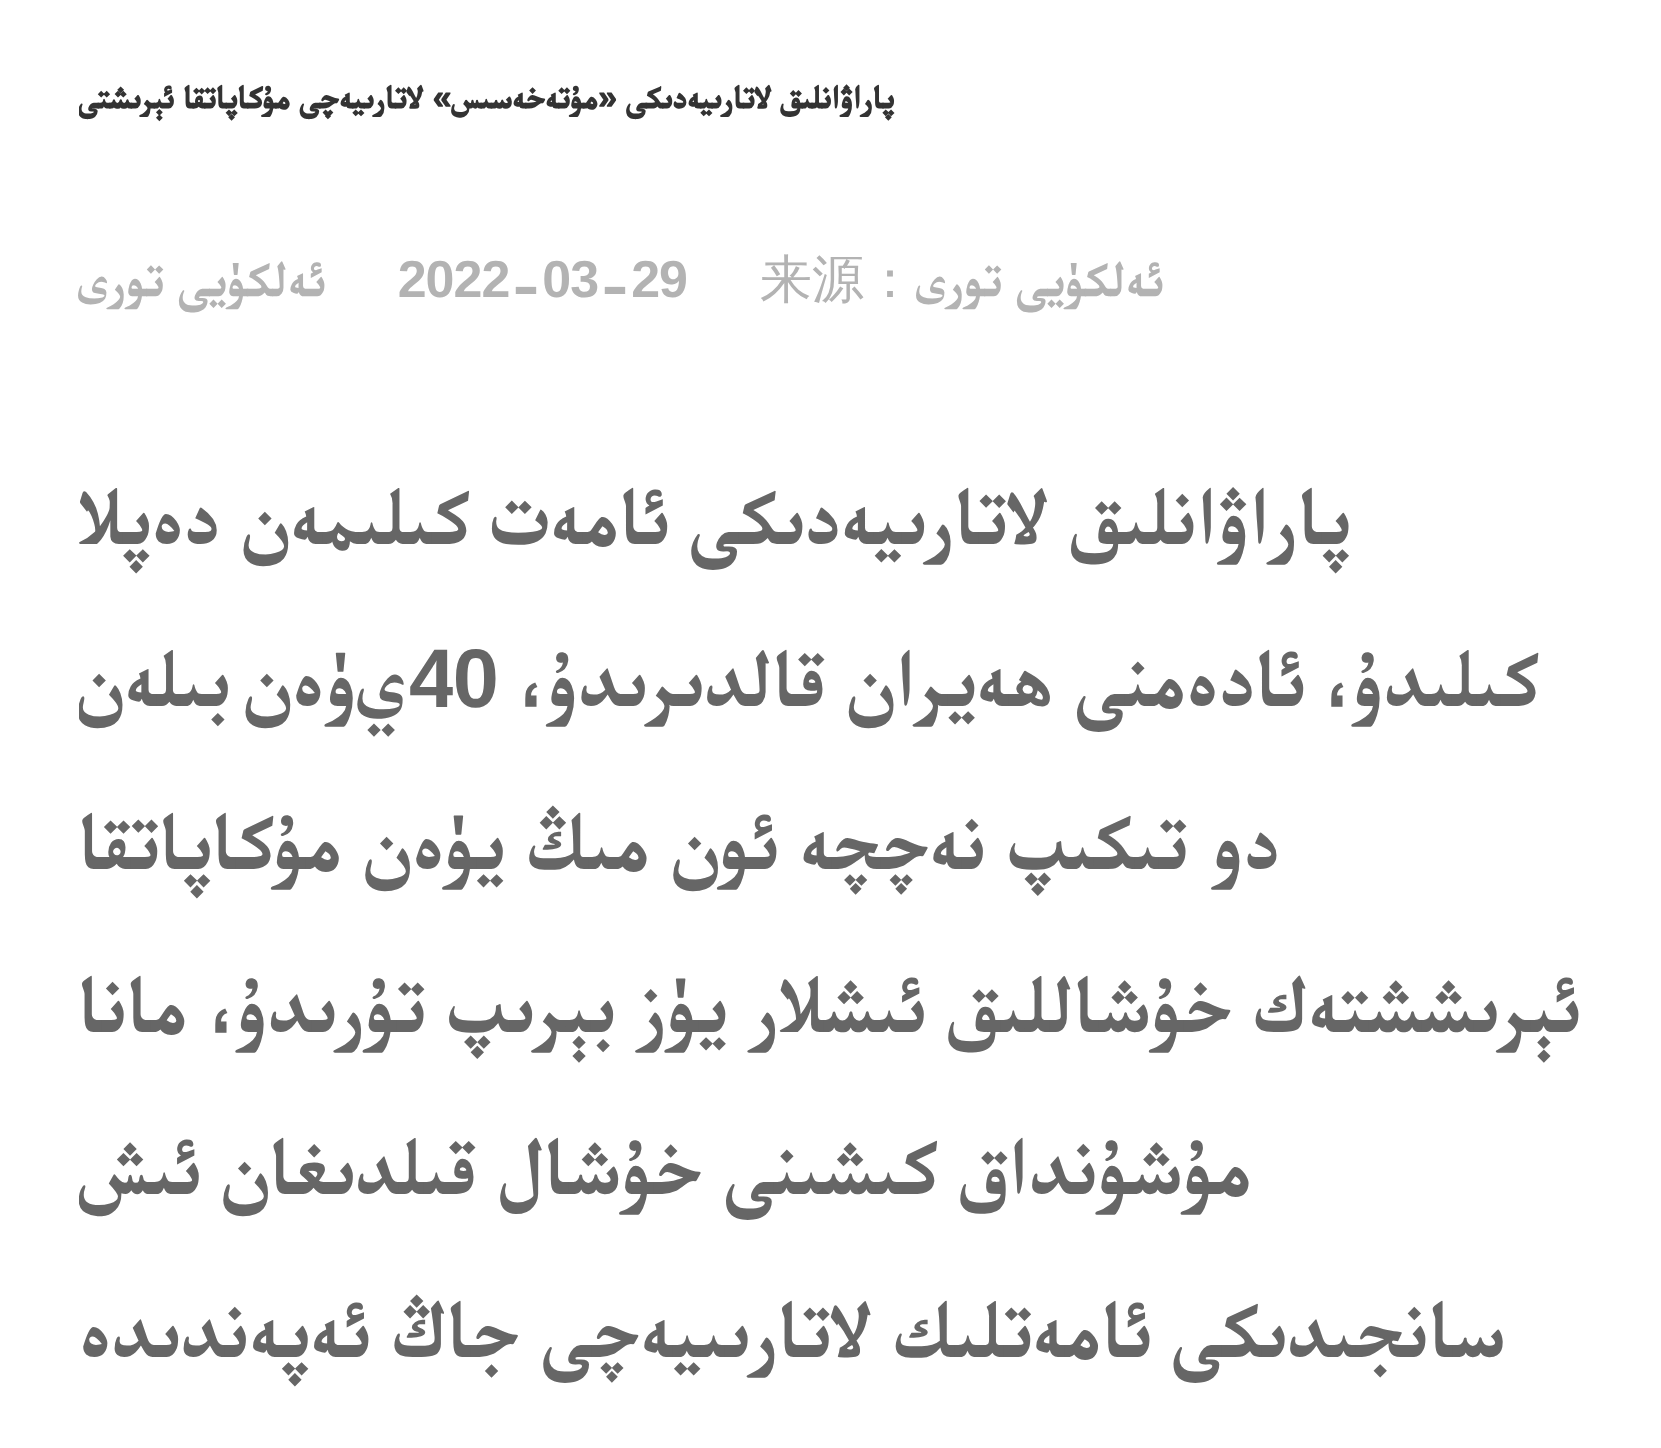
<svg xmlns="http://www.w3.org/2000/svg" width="1661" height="1448">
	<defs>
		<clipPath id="clip1"><rect x="79" y="79" width="1505" height="103" /></clipPath>
		<clipPath id="clip2"><rect x="79" y="439" width="1505" height="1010" /></clipPath>
	</defs>
	<rect width="100%" height="100%" fill="#FFFFFF" />
	<g clip-path="url(#clip1)">
		<text x="894" y="109" font-family="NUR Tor" font-size="33.75" font-weight="700" direction="rtl" fill="#333333">پاراۋانلىق لاتارىيەدىكى «مۇتەخەسىس» لاتارىيەچى مۇكاپاتقا ئېرىشتى</text>
	</g>
	<text x="1164" y="297" font-family="NUR Tor" font-size="52" direction="rtl" fill="#B3B3B3">ئەلكۈيى تورى</text>
	<text x="760" y="297" font-family="WenQuanYi Zen Hei" font-size="52" font-weight="500" fill="#B3B3B3">来源：</text>
	<text x="398" y="297" font-family="NUR Tor" font-size="52" fill="#B3B3B3">2022-03-29</text>
	<text x="326" y="297" font-family="NUR Tor" font-size="52" direction="rtl" fill="#B3B3B3">ئەلكۈيى تورى</text>
	<g font-family="NUR Tor" font-size="83.1" direction="rtl" fill="#666666">
		<text x="1351" y="545">پاراۋانلىق لاتارىيەدىكى ئامەت كىلىمەن دەپلا</text>
		<text x="1538" y="707">كىلىدۇ، ئادەمنى ھەيران قالدىرىدۇ</text>
	</g>
	<g font-family="NUR Tor" font-size="83.1" fill="#666666">
		<text x="521" y="707">،</text>
		<text x="409" y="707">40</text>
	</g>
	<g font-family="NUR Tor" font-size="83.1" direction="rtl" fill="#666666">
		<text x="406" y="707">ي</text>
		<text x="357" y="707">ۈەن</text>
	</g>
	<g clip-path="url(#clip2)">
		<text x="230" y="707" font-family="NUR Tor" font-size="83.1" direction="rtl" fill="#666666">بىلەن</text>
	</g>
	<g font-family="NUR Tor" font-size="83.1" direction="rtl" fill="#666666">
		<text x="1280" y="870">دو تىكىپ نەچچە ئون مىڭ يۈەن مۇكاپاتقا</text>
		<text x="1580" y="1033">ئېرىششتەك خۇشاللىق ئىشلار يۈز بېرىپ تۇرىدۇ، مانا</text>
	</g>
	<g clip-path="url(#clip2)">
		<text x="1252" y="1195" font-family="NUR Tor" font-size="83.1" direction="rtl" fill="#666666">مۇشۇنداق كىشىنى خۇشال قىلدىغان ئىش</text>
	</g>
	<text x="1506" y="1358" font-family="NUR Tor" font-size="83.1" direction="rtl" fill="#666666">سانجىدىكى ئامەتلىك لاتارىىيەچى جاڭ ئەپەندىدە</text>
</svg>
